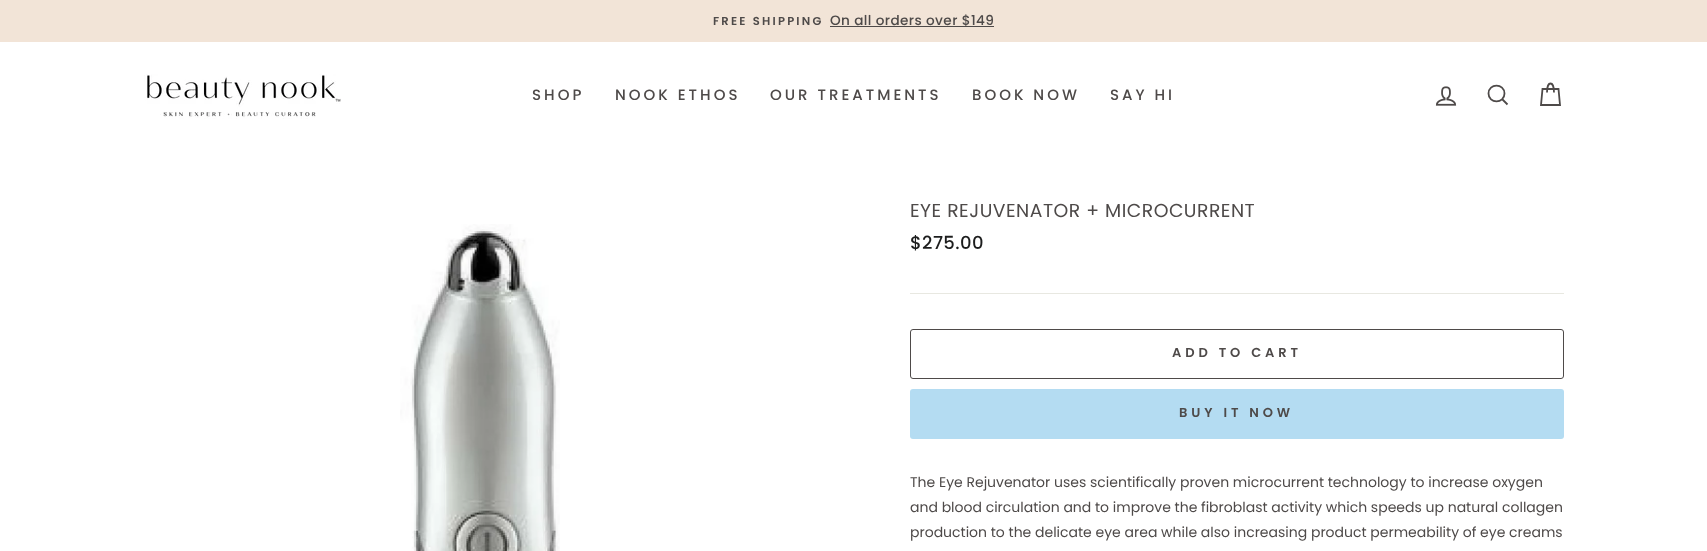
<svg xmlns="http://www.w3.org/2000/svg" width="1707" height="551">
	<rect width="100%" height="100%" fill="#FFFFFF" />
	<rect x="0" y="0" width="1707" height="42" fill="#F2E4D7" />
	<text x="713" y="25" font-family="Poppins" font-size="11.5" font-weight="600" letter-spacing="2.25" fill="#4E4A49">FREE SHIPPING</text>
	<rect x="830" y="26" width="164" height="1" fill="#4E4A49" />
	<text x="830" y="25" font-family="Poppins" font-size="13.6" font-weight="500" letter-spacing="0.4" fill="#4E4A49">On all orders over $149</text>
	<image x="144" y="74" width="197" height="45" href="assets/img1.png" />
	<g font-family="Poppins" font-size="15" font-weight="500" letter-spacing="3" fill="#4E4A49">
		<text x="532" y="100">SHOP</text>
		<text x="615" y="100">NOOK ETHOS</text>
		<text x="770" y="100">OUR TREATMENTS</text>
		<text x="972" y="100">BOOK NOW</text>
		<text x="1110" y="100">SAY HI</text>
	</g>
	<image x="1435" y="86" width="22" height="20" href="assets/img2.png" />
	<path d="M1504.5 93.5C1504.5 104 1488.5 104 1488.5 93.5C1488.5 83 1504.5 83 1504.5 93.5ZM1507.5 104.5L1502.5 99.5" fill="none" stroke="#4E4A49" stroke-width="1.8" />
	<path d="M1547 92.5C1547 80.5 1554 80.5 1554 92.5M1542.5 89H1558.5L1560 105H1541Z" fill="none" stroke="#4E4A49" stroke-width="1.8" />
	<image x="400" y="224" width="160" height="327" href="assets/img3.png" />
	<text x="910" y="217" font-family="Poppins" font-size="18.75" letter-spacing="0.5" fill="#4E4A49">EYE REJUVENATOR + MICROCURRENT</text>
	<text x="910" y="249" font-family="Poppins" font-size="18" font-weight="500" letter-spacing="0.4" fill="#1C1D1D">$275.00</text>
	<rect x="910" y="293" width="654" height="1" fill="#E8E8E1" />
	<rect x="910.5" y="329.5" width="653" height="49" rx="2.5" fill="none" stroke="#4E4A49" />
	<text x="1172" y="357" font-family="Poppins" font-size="13" font-weight="600" letter-spacing="3.9" fill="#4E4A49">ADD TO CART</text>
	<rect x="910" y="389" width="654" height="50" rx="3" fill="#B4DCF2" />
	<text x="1179" y="417" font-family="Poppins" font-size="13" font-weight="600" letter-spacing="3.9" fill="#4E4A49">BUY IT NOW</text>
	<g font-family="Poppins" font-size="14" fill="#4E4A49">
		<text x="910" y="487">The Eye Rejuvenator uses scientifically proven microcurrent technology to increase oxygen</text>
		<text x="910" y="512">and blood circulation and to improve the fibroblast activity which speeds up natural collagen</text>
		<text x="910" y="537">production to the delicate eye area while also increasing product permeability of eye creams</text>
	</g>
</svg>
